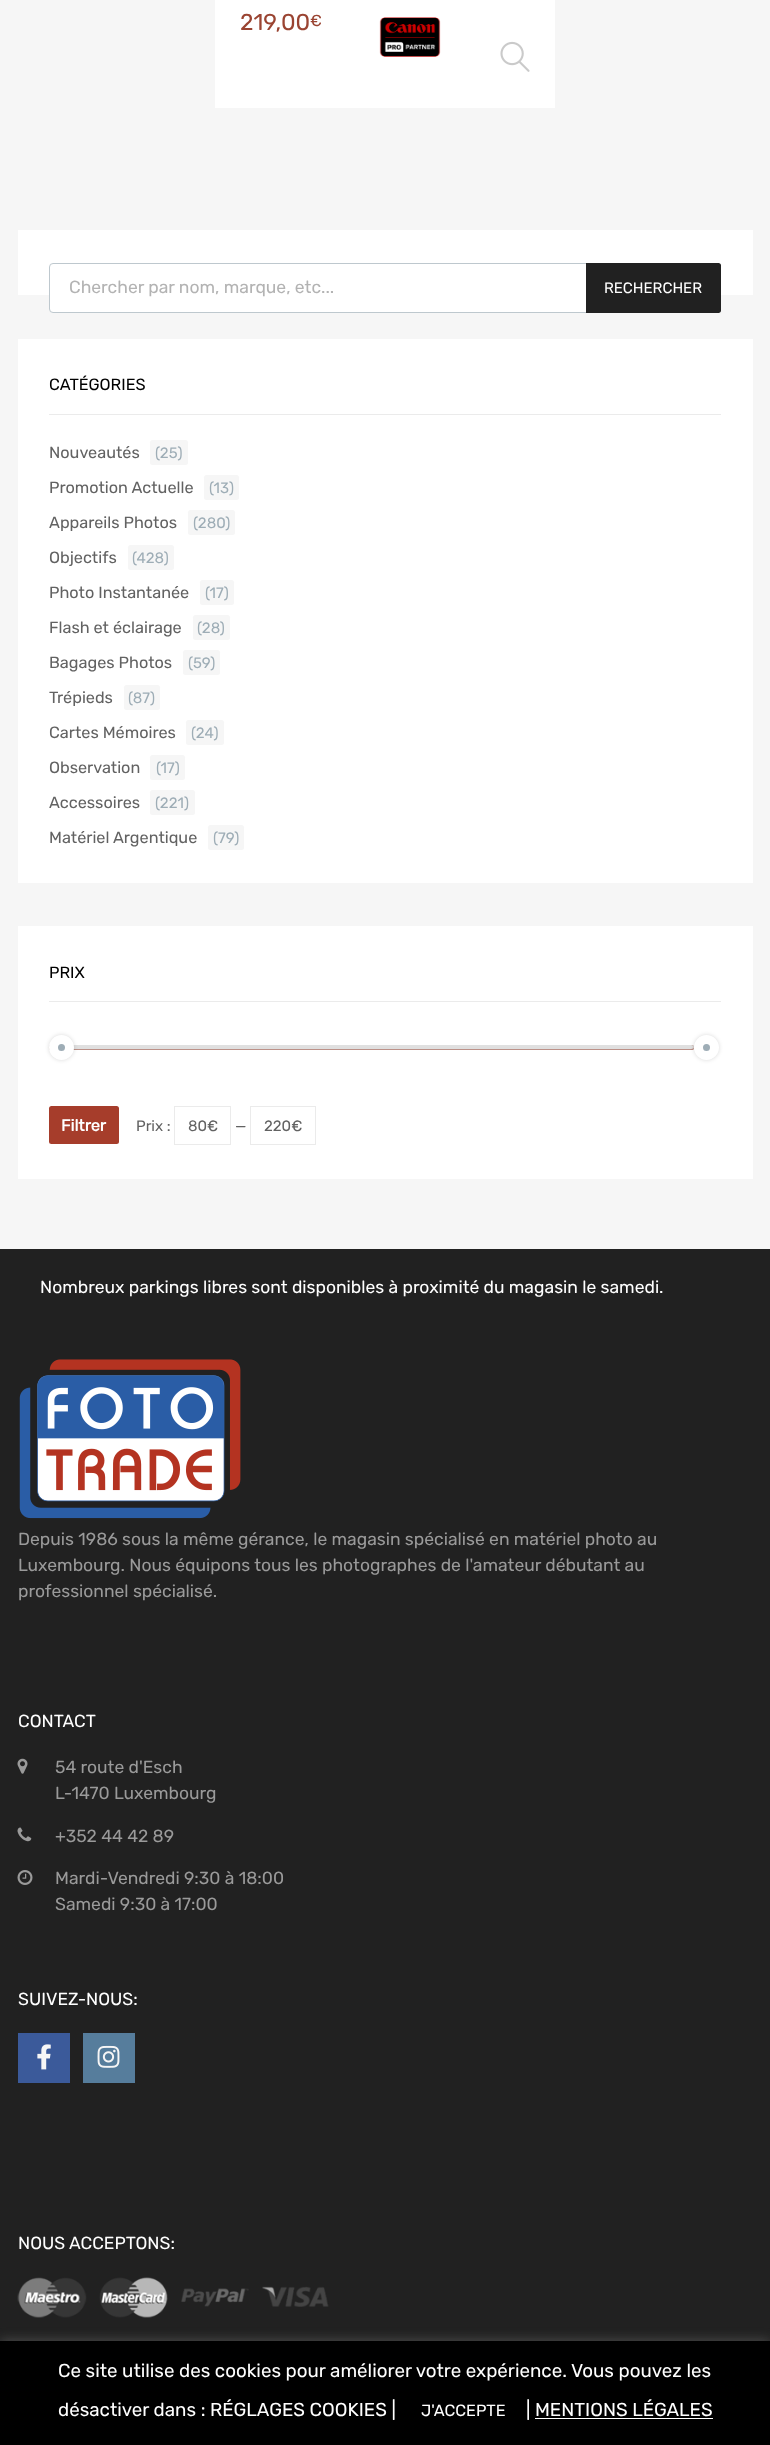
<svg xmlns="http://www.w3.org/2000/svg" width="770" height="2445">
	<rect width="100%" height="100%" fill="#F6F6F6" />
	<rect x="215" y="0" width="340" height="108" fill="#FFFFFF" />
	<text x="240" y="30" font-family="Rubik" font-size="23" font-weight="300" fill="#9A4432">219,00</text>
	<text x="310" y="26" font-family="Rubik" font-size="16" font-weight="300" fill="#9A4432">€</text>
	<image x="379" y="17" width="62" height="40" href="assets/img1.png" />
	<image x="500" y="41" width="30" height="31" href="assets/img2.png" />
	<rect x="18" y="230" width="735" height="65" fill="#FFFFFF" />
	<rect x="49.5" y="263.5" width="671" height="49" rx="3.5" fill="#FFFFFF" stroke="#BEC8CE" />
	<text x="69" y="293" font-family="Rubik" font-size="17.5" font-weight="300" fill="#B3B3B3">Chercher par nom, marque, etc...</text>
	<path d="M586 263H718.5C720 263 721 264 721 265.5V310.5C721 312 720 313 718.5 313H586Z" fill="#212121" />
	<text x="604" y="293" font-family="Rubik" font-size="15" font-weight="300" fill="#FFFFFF">RECHERCHER</text>
	<rect x="18" y="339" width="735" height="544" fill="#FFFFFF" />
	<rect x="49" y="414" width="672" height="1" fill="#EBEBEB" />
	<text x="49" y="390" font-family="Rubik" font-size="16.25" font-weight="300" fill="#000000">CATÉGORIES</text>
	<text x="49" y="458" font-family="Rubik" font-size="16.25" font-weight="300" fill="#626262">Nouveautés</text>
	<rect x="150" y="440" width="38" height="25" rx="2.5" fill="#F6F6F6" />
	<text x="155" y="458" font-family="Rubik" font-size="15" font-weight="300" fill="#9EADB6">(25)</text>
	<text x="49" y="493" font-family="Rubik" font-size="16.25" font-weight="300" fill="#626262">Promotion Actuelle</text>
	<rect x="204" y="475" width="35" height="25" rx="2.5" fill="#F6F6F6" />
	<text x="209" y="493" font-family="Rubik" font-size="15" font-weight="300" fill="#9EADB6">(13)</text>
	<text x="49" y="528" font-family="Rubik" font-size="16.25" font-weight="300" fill="#626262">Appareils Photos</text>
	<rect x="188" y="510" width="47" height="25" rx="2.5" fill="#F6F6F6" />
	<text x="193" y="528" font-family="Rubik" font-size="15" font-weight="300" fill="#9EADB6">(280)</text>
	<text x="49" y="563" font-family="Rubik" font-size="16.25" font-weight="300" fill="#626262">Objectifs</text>
	<rect x="128" y="545" width="46" height="25" rx="2.5" fill="#F6F6F6" />
	<text x="132" y="563" font-family="Rubik" font-size="15" font-weight="300" fill="#9EADB6">(428)</text>
	<text x="49" y="598" font-family="Rubik" font-size="16.25" font-weight="300" fill="#626262">Photo Instantanée</text>
	<rect x="200" y="580" width="34" height="25" rx="2.5" fill="#F6F6F6" />
	<text x="205" y="598" font-family="Rubik" font-size="15" font-weight="300" fill="#9EADB6">(17)</text>
	<text x="49" y="633" font-family="Rubik" font-size="16.25" font-weight="300" fill="#626262">Flash et éclairage</text>
	<rect x="193" y="615" width="37" height="25" rx="2.5" fill="#F6F6F6" />
	<text x="197" y="633" font-family="Rubik" font-size="15" font-weight="300" fill="#9EADB6">(28)</text>
	<text x="49" y="668" font-family="Rubik" font-size="16.25" font-weight="300" fill="#626262">Bagages Photos</text>
	<rect x="183" y="650" width="37" height="25" rx="2.5" fill="#F6F6F6" />
	<text x="188" y="668" font-family="Rubik" font-size="15" font-weight="300" fill="#9EADB6">(59)</text>
	<text x="49" y="703" font-family="Rubik" font-size="16.25" font-weight="300" fill="#626262">Trépieds</text>
	<rect x="124" y="685" width="36" height="25" rx="2.5" fill="#F6F6F6" />
	<text x="128" y="703" font-family="Rubik" font-size="15" font-weight="300" fill="#9EADB6">(87)</text>
	<text x="49" y="738" font-family="Rubik" font-size="16.25" font-weight="300" fill="#626262">Cartes Mémoires</text>
	<rect x="186" y="720" width="38" height="25" rx="2.5" fill="#F6F6F6" />
	<text x="191" y="738" font-family="Rubik" font-size="15" font-weight="300" fill="#9EADB6">(24)</text>
	<text x="49" y="773" font-family="Rubik" font-size="16.25" font-weight="300" fill="#626262">Observation</text>
	<rect x="150" y="755" width="35" height="25" rx="2.5" fill="#F6F6F6" />
	<text x="156" y="773" font-family="Rubik" font-size="15" font-weight="300" fill="#9EADB6">(17)</text>
	<text x="49" y="808" font-family="Rubik" font-size="16.25" font-weight="300" fill="#626262">Accessoires</text>
	<rect x="150" y="790" width="45" height="25" rx="2.5" fill="#F6F6F6" />
	<text x="155" y="808" font-family="Rubik" font-size="15" font-weight="300" fill="#9EADB6">(221)</text>
	<text x="49" y="843" font-family="Rubik" font-size="16.25" font-weight="300" fill="#626262">Matériel Argentique</text>
	<rect x="208" y="825" width="36" height="25" rx="2.5" fill="#F6F6F6" />
	<text x="213" y="843" font-family="Rubik" font-size="15" font-weight="300" fill="#9EADB6">(79)</text>
	<rect x="18" y="926" width="735" height="253" fill="#FFFFFF" />
	<rect x="49" y="1001" width="672" height="1" fill="#EBEBEB" />
	<text x="49" y="978" font-family="Rubik" font-size="16.25" font-weight="300" fill="#000000">PRIX</text>
	<rect x="49" y="1045" width="645" height="5" fill="#F6F6F6" />
	<rect x="49" y="1045" width="645" height="5" rx="2.5" fill="#9A4432" />
	<image x="49" y="1045" width="645" height="5" href="assets/img3.png" />
	<rect x="49" y="1035" width="25" height="25" rx="12.5" fill="#000000" fill-opacity="0.15" filter="blur(2px)" />
	<circle cx="61.5" cy="1047.5" r="8" fill="#9EADB6" stroke="#FFFFFF" stroke-width="9" />
	<rect x="694" y="1035" width="25" height="25" rx="12.5" fill="#000000" fill-opacity="0.15" filter="blur(2px)" />
	<circle cx="706.5" cy="1047.5" r="8" fill="#9EADB6" stroke="#FFFFFF" stroke-width="9" />
	<rect x="49" y="1106" width="70" height="38" rx="2.5" fill="#A63D2B" />
	<text x="61" y="1131" font-family="Rubik" font-size="16.25" font-weight="700" fill="#FFFFFF">Filtrer</text>
	<text x="136" y="1131" font-family="Rubik" font-size="15" font-weight="300" fill="#626262">Prix :</text>
	<rect x="174.5" y="1106.5" width="56" height="38" fill="none" stroke="#EBEBEB" />
	<g font-family="Rubik" font-size="15" font-weight="300" fill="#626262">
		<text x="188" y="1131">80€</text>
		<text x="235" y="1131">—</text>
	</g>
	<rect x="250.5" y="1106.5" width="65" height="38" fill="none" stroke="#EBEBEB" />
	<text x="264" y="1131" font-family="Rubik" font-size="15" font-weight="300" fill="#626262">220€</text>
	<rect x="0" y="1249" width="770" height="1092" fill="#212121" />
	<text x="40" y="1293" font-family="Rubik" font-size="17.5" font-weight="300" fill="#FFFFFF">Nombreux parkings libres sont disponibles à proximité du magasin le samedi.</text>
	<image x="19" y="1359" width="222" height="160" href="assets/img4.png" />
	<g font-family="Rubik" font-size="17.5" font-weight="300" fill="#9A9A9A">
		<text x="18" y="1545">Depuis 1986 sous la même gérance, le magasin spécialisé en matériel photo au</text>
		<text x="18" y="1571">Luxembourg. Nous équipons tous les photographes de l'amateur débutant au</text>
		<text x="18" y="1597">professionnel spécialisé.</text>
	</g>
	<text x="18" y="1727" font-family="Rubik" font-size="17.5" font-weight="300" fill="#FFFFFF">CONTACT</text>
	<image x="17" y="1758" width="11" height="16" href="assets/img5.png" />
	<g font-family="Rubik" font-size="17.5" font-weight="300" fill="#9A9A9A">
		<text x="55" y="1773">54 route d'Esch</text>
		<text x="55" y="1799">L-1470 Luxembourg</text>
	</g>
	<image x="17" y="1827" width="15" height="15" href="assets/img6.png" />
	<text x="55" y="1842" font-family="Rubik" font-size="17.5" font-weight="300" fill="#9A9A9A">+352 44 42 89</text>
	<image x="17" y="1870" width="16" height="15" href="assets/img7.png" />
	<g font-family="Rubik" font-size="17.5" font-weight="300" fill="#9A9A9A">
		<text x="55" y="1884">Mardi-Vendredi 9:30 à 18:00</text>
		<text x="55" y="1910">Samedi 9:30 à 17:00</text>
	</g>
	<text x="18" y="2005" font-family="Rubik" font-size="17.5" font-weight="300" fill="#FFFFFF">SUIVEZ-NOUS:</text>
	<rect x="18" y="2033" width="52" height="50" fill="#3B5A9A" />
	<image x="37" y="2044" width="14" height="26" href="assets/img8.png" />
	<rect x="83" y="2033" width="52" height="50" fill="#567D9C" />
	<image x="97" y="2045" width="23" height="23" href="assets/img9.png" />
	<text x="18" y="2249" font-family="Rubik" font-size="17.5" font-weight="300" fill="#FFFFFF">NOUS ACCEPTONS:</text>
	<image x="17" y="2277" width="70" height="41" href="assets/img10.png" />
	<image x="99" y="2277" width="69" height="41" href="assets/img11.png" />
	<image x="181" y="2288" width="68" height="19" href="assets/img12.png" />
	<image x="262" y="2286" width="67" height="21" href="assets/img13.png" />
	<rect x="0" y="2340" width="770" height="104" fill="#ACABAB" fill-opacity="0.3" filter="blur(6px)" />
	<rect x="0" y="2341" width="770" height="104" fill="#000000" />
	<g font-family="Rubik" font-size="18.75" font-weight="300" fill="#FFFFFF">
		<text x="58" y="2377">Ce site utilise des cookies pour améliorer votre expérience. Vous pouvez les</text>
		<text x="58" y="2416">désactiver dans : RÉGLAGES COOKIES |</text>
	</g>
	<text x="421" y="2416" font-family="Rubik" font-size="16.25" font-weight="300" fill="#FFFFFF">J'ACCEPTE</text>
	<text x="526" y="2416" font-family="Rubik" font-size="18.75" font-weight="300" fill="#FFFFFF">| MENTIONS LÉGALES</text>
	<rect x="535" y="2418" width="178" height="1" fill="#FFFFFF" />
</svg>
